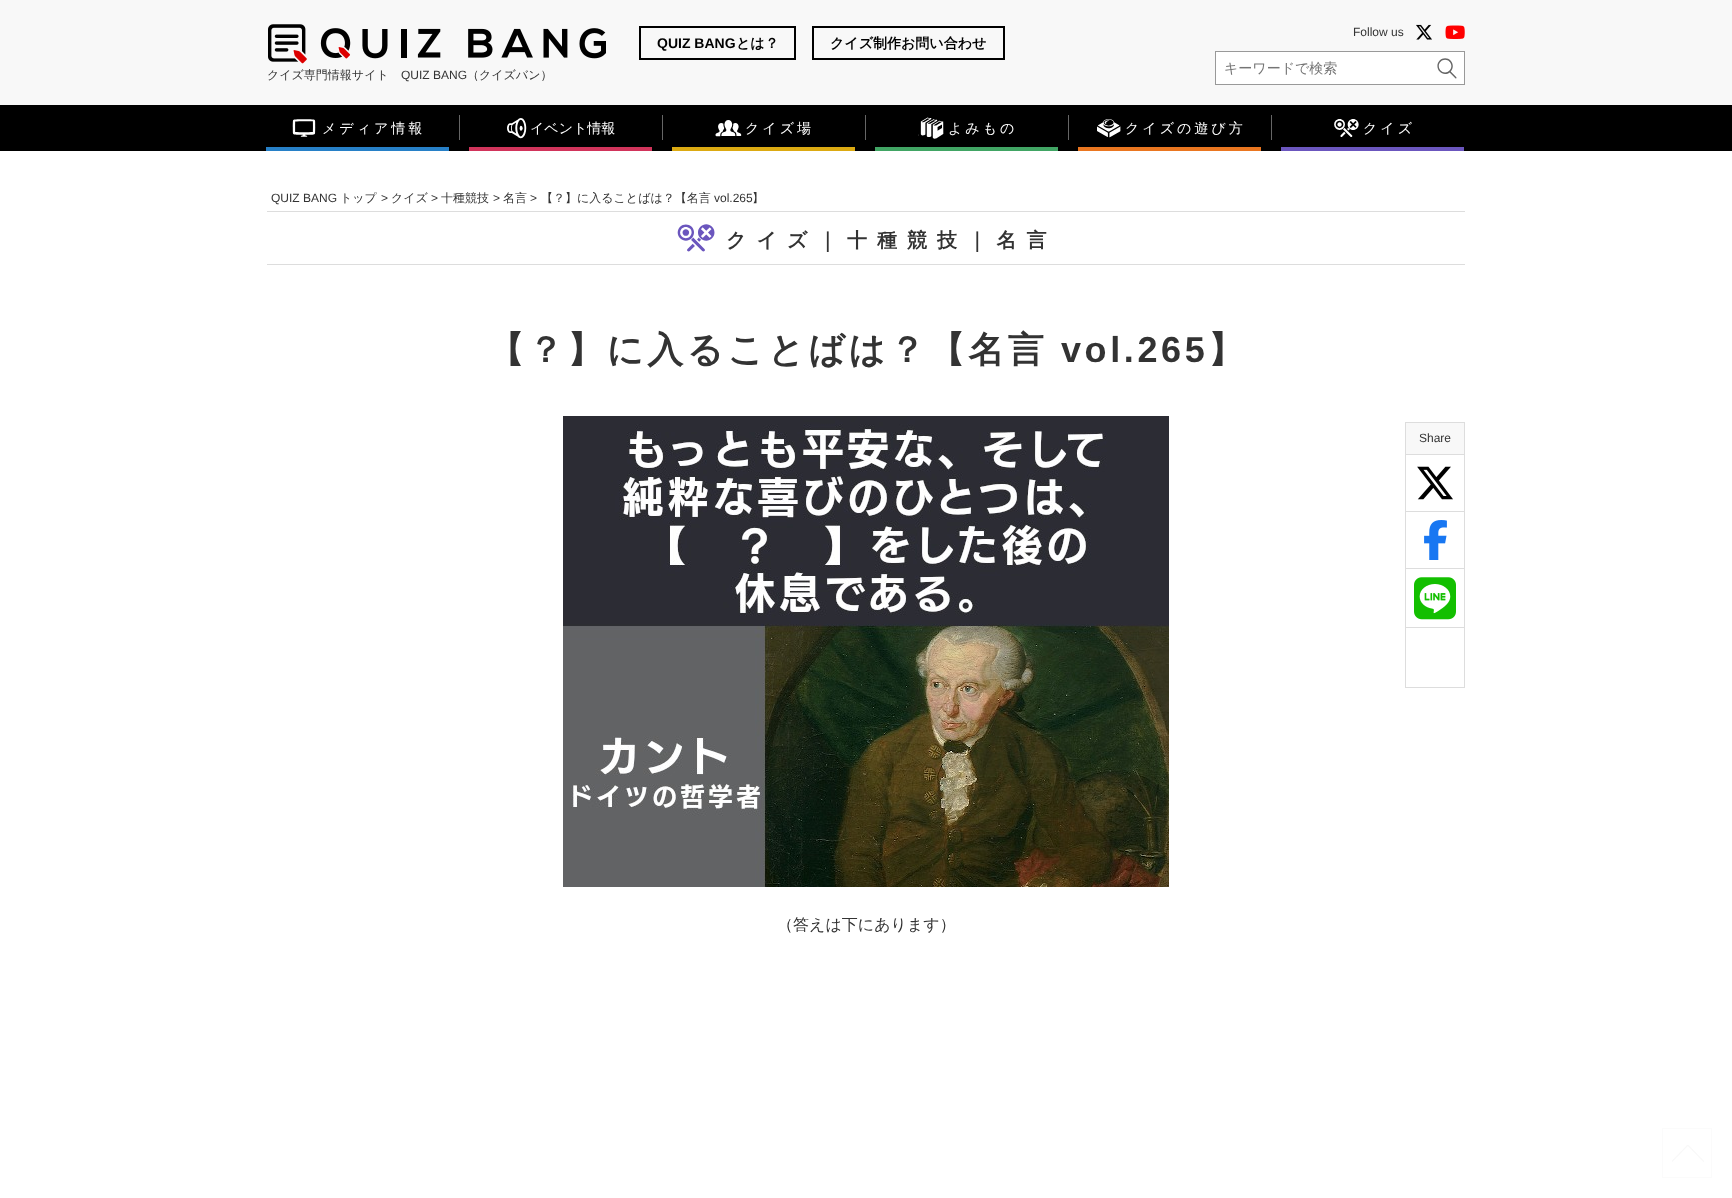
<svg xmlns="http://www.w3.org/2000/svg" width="1732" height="1198">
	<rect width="100%" height="100%" fill="#FFFFFF" />
	<rect x="0" y="0" width="1732" height="105" fill="#F8F8F8" />
	<rect x="640" y="27" width="155" height="32" fill="none" stroke="#000000" stroke-width="2" />
	<text x="657" y="48" font-family="Liberation Sans" font-size="14" font-weight="700" fill="#000000">QUIZ BANG</text>
	<text x="736" y="48" font-family="WenQuanYi Zen Hei" font-size="14" font-weight="700" fill="#000000">とは？</text>
	<rect x="813" y="27" width="191" height="32" fill="none" stroke="#000000" stroke-width="2" />
	<text x="830" y="48" font-family="WenQuanYi Zen Hei" font-size="14" font-weight="700" fill="#000000">クイズ制作お問い合わせ</text>
	<text x="1353" y="36" font-family="Liberation Sans" font-size="12" fill="#333333">Follow us</text>
	<image x="1416" y="24" width="16" height="16" href="assets/img1.png" />
	<image x="1445" y="25" width="20" height="14" href="assets/img2.png" />
	<rect x="1215.5" y="51.5" width="249" height="33" fill="#FFFFFF" stroke="#999999" />
	<text x="1224" y="73" font-family="WenQuanYi Zen Hei" font-size="14" font-weight="500" fill="#757575">キーワードで検索</text>
	<image x="1437" y="58" width="20" height="21" href="assets/img3.png" />
	<image x="268" y="24" width="338" height="40" href="assets/img4.png" />
	<text x="267" y="79" font-family="WenQuanYi Zen Hei" font-size="12" font-weight="500" fill="#333333">クイズ専門情報サイト</text>
	<text x="401" y="79" font-family="Liberation Sans" font-size="12" fill="#333333">QUIZ BANG</text>
	<text x="467" y="79" font-family="WenQuanYi Zen Hei" font-size="12" font-weight="500" fill="#333333">（クイズバン）</text>
	<rect x="0" y="105" width="1732" height="46" fill="#000000" />
	<image x="292" y="119" width="24" height="18" href="assets/img5.png" />
	<text x="322" y="133" font-family="WenQuanYi Zen Hei" font-size="14" font-weight="500" letter-spacing="3" fill="#FFFFFF">メディア情報</text>
	<rect x="266" y="147" width="183" height="4" fill="#2780C7" />
	<rect x="459" y="115" width="1" height="25" fill="#666666" />
	<image x="507" y="118" width="20" height="21" href="assets/img6.png" />
	<text x="530" y="133" font-family="WenQuanYi Zen Hei" font-size="14" font-weight="500" fill="#FFFFFF">イベント情報</text>
	<rect x="469" y="147" width="183" height="4" fill="#D1345B" />
	<rect x="662" y="115" width="1" height="25" fill="#666666" />
	<image x="715" y="120" width="27" height="17" href="assets/img7.png" />
	<text x="745" y="133" font-family="WenQuanYi Zen Hei" font-size="14" font-weight="500" letter-spacing="3" fill="#FFFFFF">クイズ場</text>
	<rect x="672" y="147" width="183" height="4" fill="#DCAA12" />
	<rect x="865" y="115" width="1" height="25" fill="#666666" />
	<image x="918" y="117" width="26" height="22" href="assets/img8.png" />
	<text x="948" y="133" font-family="WenQuanYi Zen Hei" font-size="14" font-weight="500" letter-spacing="3" fill="#FFFFFF">よみもの</text>
	<rect x="875" y="147" width="183" height="4" fill="#41A564" />
	<rect x="1068" y="115" width="1" height="25" fill="#666666" />
	<image x="1097" y="119" width="24" height="19" href="assets/img9.png" />
	<text x="1125" y="133" font-family="WenQuanYi Zen Hei" font-size="14" font-weight="500" letter-spacing="3" fill="#FFFFFF">クイズの遊び方</text>
	<rect x="1078" y="147" width="183" height="4" fill="#EA7620" />
	<rect x="1271" y="115" width="1" height="25" fill="#666666" />
	<image x="1334" y="119" width="25" height="18" href="assets/img10.png" />
	<text x="1363" y="133" font-family="WenQuanYi Zen Hei" font-size="14" font-weight="500" letter-spacing="3" fill="#FFFFFF">クイズ</text>
	<rect x="1281" y="147" width="183" height="4" fill="#6B56BE" />
	<rect x="267" y="211" width="1198" height="1" fill="#DDDDDD" />
	<text x="271" y="202" font-family="Liberation Sans" font-size="12" fill="#333333">QUIZ BANG</text>
	<text x="340" y="202" font-family="WenQuanYi Zen Hei" font-size="12" font-weight="500" fill="#333333">トップ</text>
	<text x="381" y="202" font-family="Liberation Sans" font-size="12" fill="#333333">&gt;</text>
	<text x="391" y="202" font-family="WenQuanYi Zen Hei" font-size="12" font-weight="500" fill="#333333">クイズ</text>
	<text x="431" y="202" font-family="Liberation Sans" font-size="12" fill="#333333">&gt;</text>
	<text x="441" y="202" font-family="WenQuanYi Zen Hei" font-size="12" font-weight="500" fill="#333333">十種競技</text>
	<text x="493" y="202" font-family="Liberation Sans" font-size="12" fill="#333333">&gt;</text>
	<text x="503" y="202" font-family="WenQuanYi Zen Hei" font-size="12" font-weight="500" fill="#333333">名言</text>
	<text x="530" y="202" font-family="Liberation Sans" font-size="12" fill="#333333">&gt;</text>
	<text x="541" y="202" font-family="WenQuanYi Zen Hei" font-size="12" font-weight="500" fill="#333333">【？】に入ることばは？【名言</text>
	<text x="714" y="202" font-family="Liberation Sans" font-size="12" fill="#333333">vol.265</text>
	<text x="752" y="202" font-family="WenQuanYi Zen Hei" font-size="12" font-weight="500" fill="#333333">】</text>
	<rect x="267" y="264" width="1198" height="1" fill="#DDDDDD" />
	<image x="677" y="224" width="38" height="28" href="assets/img11.png" />
	<text x="726" y="247" font-family="WenQuanYi Zen Hei" font-size="20" font-weight="700" letter-spacing="10" fill="#333333">クイズ｜十種競技｜名言</text>
	<text x="488" y="362" font-family="WenQuanYi Zen Hei" font-size="36" font-weight="700" letter-spacing="3.6" fill="#333333">【？】に入ることばは？【名言</text>
	<text x="1061" y="362" font-family="Liberation Sans" font-size="36" font-weight="700" letter-spacing="3.6" fill="#333333">vol.265</text>
	<text x="1208" y="362" font-family="WenQuanYi Zen Hei" font-size="36" font-weight="700" letter-spacing="3.6" fill="#333333">】</text>
	<rect x="1406" y="423" width="58" height="31" fill="#F8F8F8" />
	<rect x="1405" y="422" width="60" height="1" fill="#DDDDDD" />
	<rect x="1405" y="454" width="60" height="1" fill="#DDDDDD" />
	<rect x="1405" y="511" width="60" height="1" fill="#DDDDDD" />
	<rect x="1405" y="568" width="60" height="1" fill="#DDDDDD" />
	<rect x="1405" y="627" width="60" height="1" fill="#DDDDDD" />
	<rect x="1464" y="627" width="1" height="61" fill="#DDDDDD" />
	<rect x="1464" y="568" width="1" height="60" fill="#DDDDDD" />
	<rect x="1464" y="511" width="1" height="58" fill="#DDDDDD" />
	<rect x="1464" y="454" width="1" height="58" fill="#DDDDDD" />
	<rect x="1464" y="422" width="1" height="33" fill="#DDDDDD" />
	<rect x="1405" y="687" width="60" height="1" fill="#DDDDDD" />
	<rect x="1405" y="627" width="1" height="61" fill="#DDDDDD" />
	<rect x="1405" y="568" width="1" height="60" fill="#DDDDDD" />
	<rect x="1405" y="511" width="1" height="58" fill="#DDDDDD" />
	<rect x="1405" y="454" width="1" height="58" fill="#DDDDDD" />
	<rect x="1405" y="422" width="1" height="33" fill="#DDDDDD" />
	<text x="1419" y="442" font-family="Liberation Sans" font-size="12" fill="#333333">Share</text>
	<image x="1417" y="466" width="36" height="34" href="assets/img12.png" />
	<image x="1424" y="520" width="23" height="40" href="assets/img13.png" />
	<image x="1414" y="577" width="42" height="43" href="assets/img14.png" />
	<image x="563" y="416" width="606" height="471" href="assets/img15.png" />
	<text x="777" y="930" font-family="WenQuanYi Zen Hei" font-size="16" font-weight="500" fill="#333333">（答えは下にあります）</text>
	<image x="1672" y="1145" width="32" height="17" href="assets/img16.png" />
	<rect x="1662.5" y="1128.5" width="49" height="49" fill="none" stroke="#FBFBFB" />
</svg>
